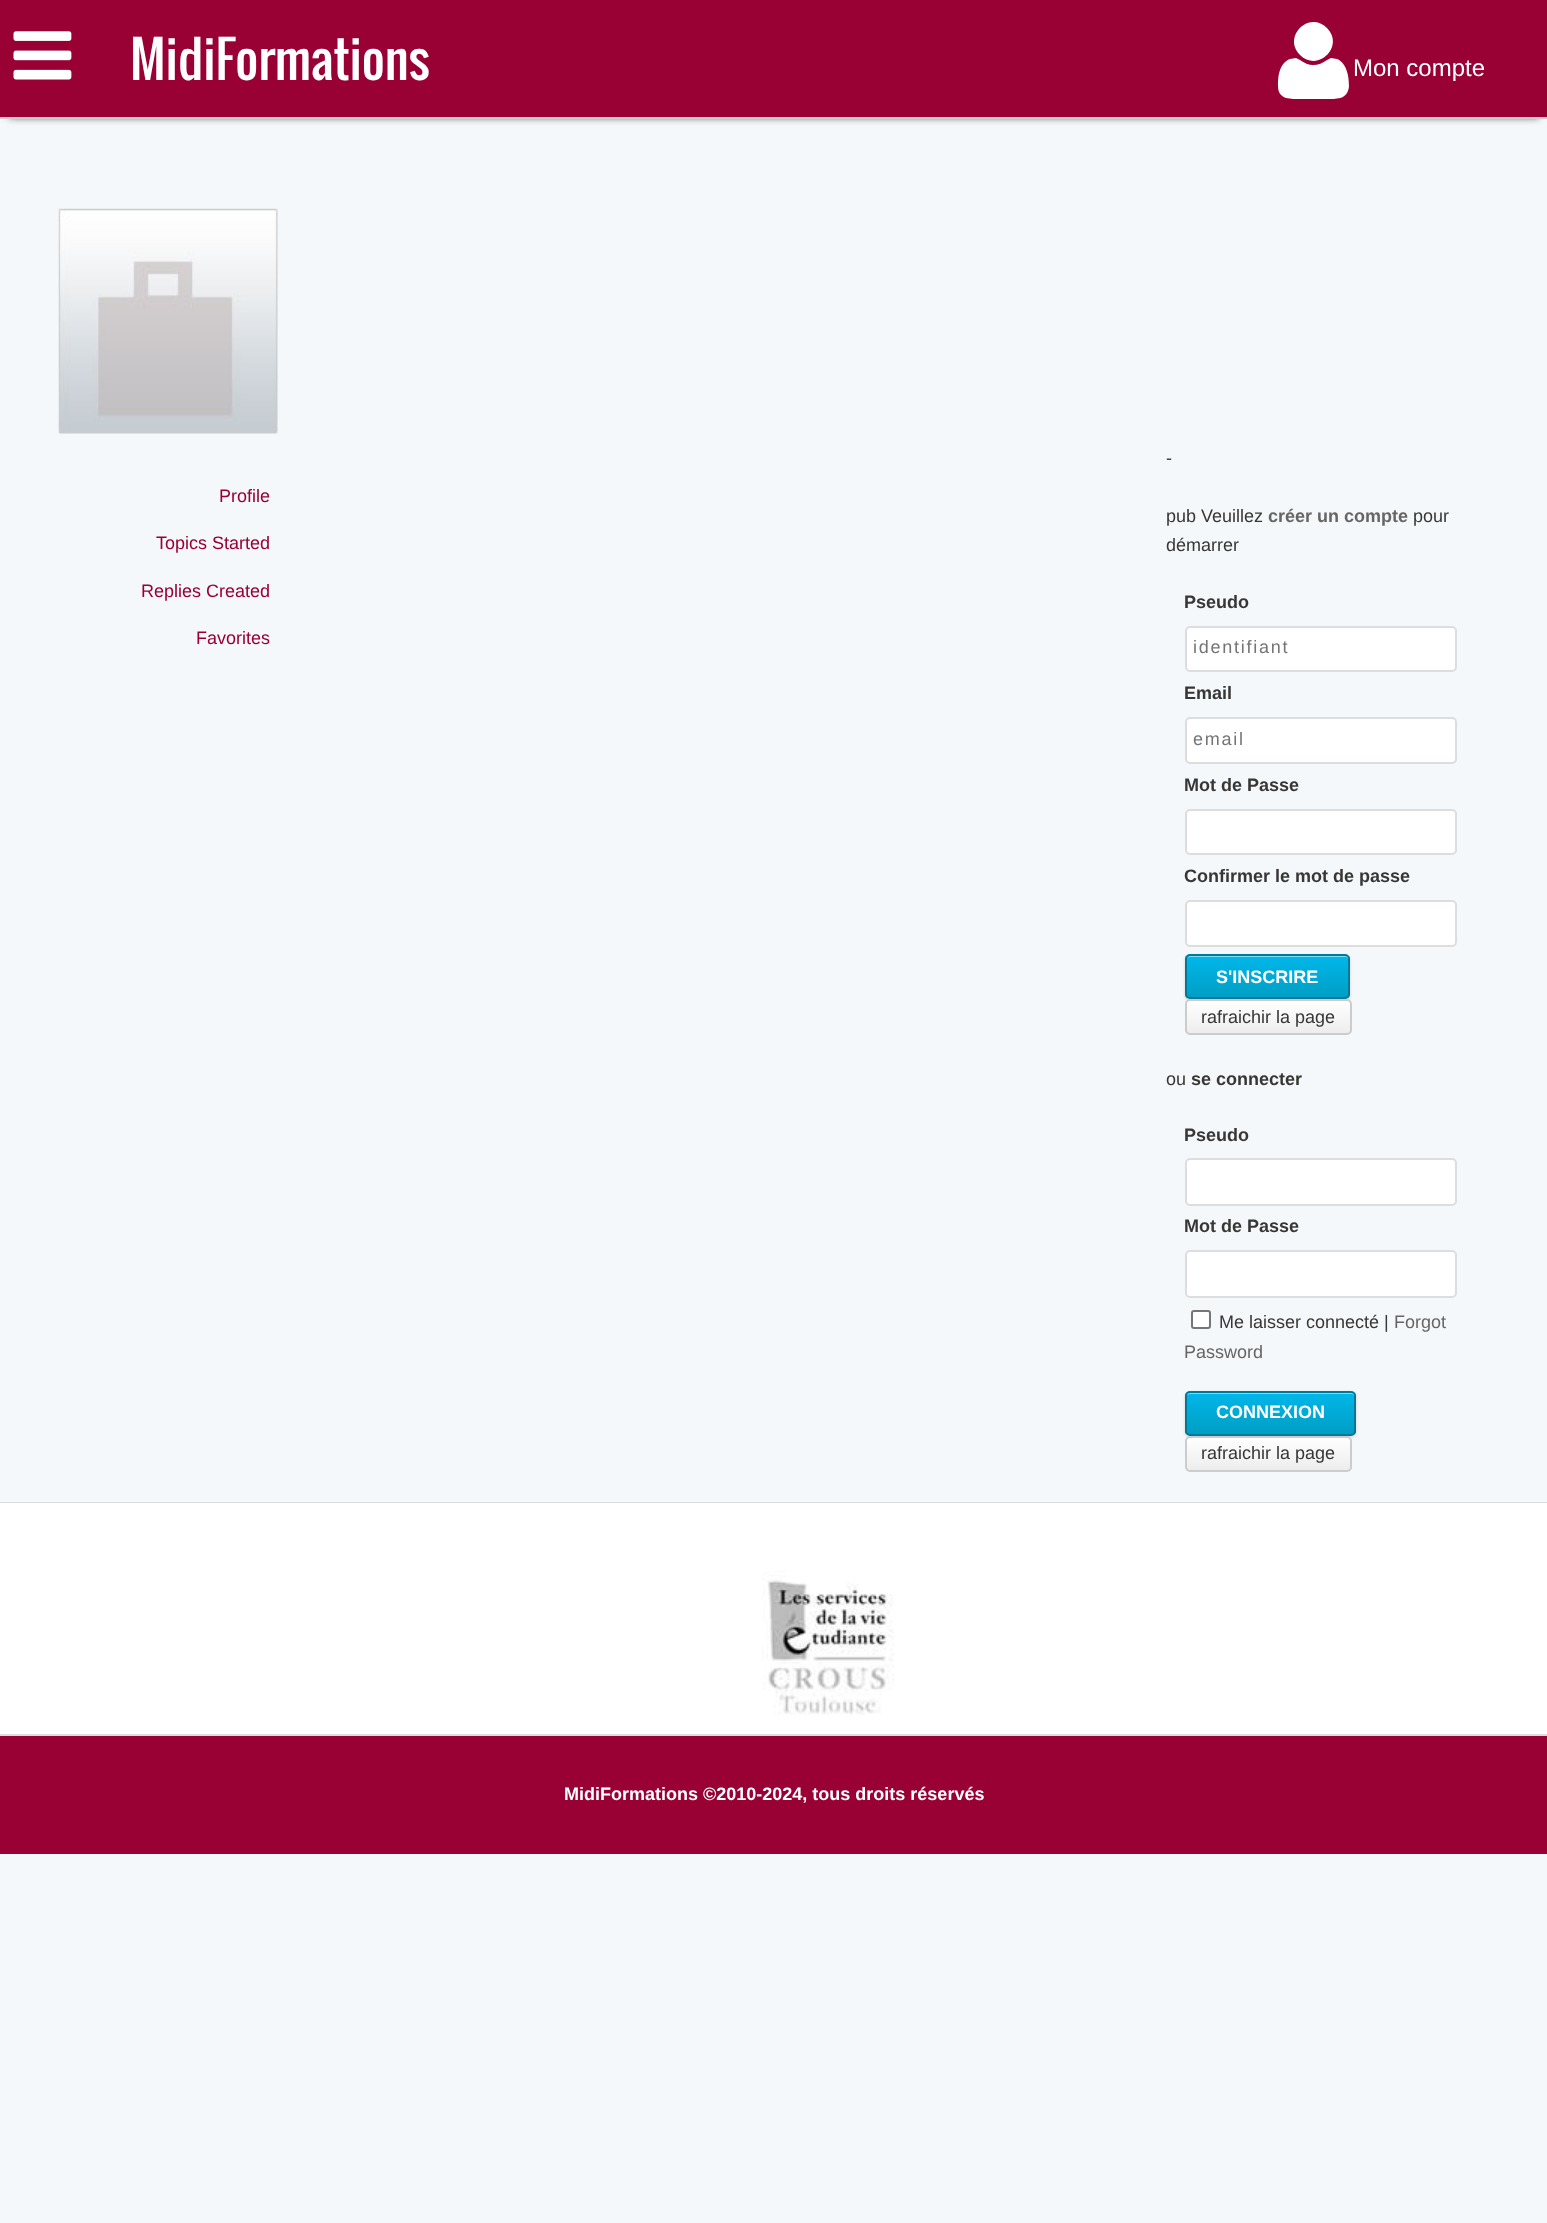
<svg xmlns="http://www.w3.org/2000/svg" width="1547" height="2223">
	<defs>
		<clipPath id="clip1"><rect x="1185" y="954" width="165" height="45" rx="5" /></clipPath>
		<linearGradient id="g1" gradientUnits="userSpaceOnUse" x1="1268" y1="956" x2="1268" y2="998"><stop offset="0" stop-color="#00B7EA" /><stop offset="1" stop-color="#009EC3" /></linearGradient>
		<clipPath id="clip2"><rect x="1185" y="999" width="167" height="36" rx="5" /></clipPath>
		<linearGradient id="g2" gradientUnits="userSpaceOnUse" x1="1268" y1="1001" x2="1268" y2="1034"><stop offset="0" stop-color="#FFFFFF" /><stop offset="1" stop-color="#EDEDED" /></linearGradient>
		<clipPath id="clip3"><rect x="1185" y="1391" width="171" height="45" rx="5" /></clipPath>
		<linearGradient id="g3" gradientUnits="userSpaceOnUse" x1="1271" y1="1392" x2="1271" y2="1434"><stop offset="0" stop-color="#00B7EA" /><stop offset="1" stop-color="#009EC3" /></linearGradient>
		<clipPath id="clip4"><rect x="1185" y="1436" width="167" height="36" rx="5" /></clipPath>
		<linearGradient id="g4" gradientUnits="userSpaceOnUse" x1="1268" y1="1437" x2="1268" y2="1470"><stop offset="0" stop-color="#FFFFFF" /><stop offset="1" stop-color="#EDEDED" /></linearGradient>
	</defs>
	<rect width="100%" height="100%" fill="#F5F8FA" />
	<rect x="9" y="15" width="1530" height="101" fill="#000000" filter="blur(4.5px)" />
	<rect x="0" y="0" width="1547" height="117" fill="#990033" />
	<rect x="0" y="117" width="1547" height="2" fill="#CCCCCC" />
	<image x="13" y="31" width="59" height="49" href="assets/img1.png" />
	<text x="130" y="80" font-family="Oswald" font-size="49.5" fill="#FFFFFF">MidiFormations</text>
	<text x="1353" y="76" font-family="Liberation Sans" font-size="24" fill="#FFFFFF">Mon compte</text>
	<path d="M1278 86C1278 77 1279 63 1290 59L1296 58L1300 60C1304 63 1309 65 1313 65C1318 65 1323 63 1327 60L1331 58L1337 59C1347 63 1349 77 1349 86C1348 99 1338 99 1328 99H1299C1289 99 1278 99 1278 86ZM1300 55C1282 37 1309 10 1327 28C1345 46 1318 73 1300 55Z" fill="#FFFFFF" />
	<image x="58" y="208" width="220" height="226" href="assets/img2.png" />
	<g font-family="Liberation Sans" font-size="18" fill="#990033">
		<text x="219" y="502">Profile</text>
		<text x="156" y="549">Topics Started</text>
		<text x="141" y="597">Replies Created</text>
		<text x="196" y="644">Favorites</text>
	</g>
	<g font-family="Liberation Sans" font-size="18" fill="#373737">
		<text x="1166" y="464">-</text>
		<text x="1166" y="522">pub Veuillez</text>
	</g>
	<text x="1268" y="522" font-family="Liberation Sans" font-size="18" font-weight="700" fill="#666666">créer un compte</text>
	<g font-family="Liberation Sans" font-size="18" fill="#373737">
		<text x="1413" y="522">pour</text>
		<text x="1166" y="551">démarrer</text>
	</g>
	<text x="1184" y="608" font-family="Liberation Sans" font-size="18" font-weight="700" fill="#373737">Pseudo</text>
	<rect x="1186" y="627" width="270" height="44" rx="4" fill="#FFFFFF" stroke="#DDDDDD" stroke-width="2" />
	<text x="1193" y="653" font-family="Liberation Sans" font-size="18" letter-spacing="1.75" fill="#757575">identifiant</text>
	<text x="1184" y="699" font-family="Liberation Sans" font-size="18" font-weight="700" fill="#373737">Email</text>
	<rect x="1186" y="718" width="270" height="45" rx="4" fill="#FFFFFF" stroke="#DDDDDD" stroke-width="2" />
	<text x="1193" y="745" font-family="Liberation Sans" font-size="18" letter-spacing="1.75" fill="#757575">email</text>
	<text x="1184" y="791" font-family="Liberation Sans" font-size="18" font-weight="700" fill="#373737">Mot de Passe</text>
	<rect x="1186" y="810" width="270" height="44" rx="4" fill="#FFFFFF" stroke="#DDDDDD" stroke-width="2" />
	<text x="1184" y="882" font-family="Liberation Sans" font-size="18" font-weight="700" fill="#373737">Confirmer le mot de passe</text>
	<rect x="1186" y="901" width="270" height="45" rx="4" fill="#FFFFFF" stroke="#DDDDDD" stroke-width="2" />
	<rect x="1185" y="956" width="165" height="45" rx="5" fill="#000000" fill-opacity="0.15" filter="blur(1.5px)" />
	<g clip-path="url(#clip1)">
		<rect x="1185" y="956" width="165" height="42" fill="url(#g1)" />
	</g>
	<path d="M1190 957H1346C1347 957 1348 958 1348 960V997C1349 997 1349 996 1349 995V959C1349 957 1348 956 1346 956H1190C1189 956 1188 957 1187 958Z" fill="#FFFFFF" fill-opacity="0.5" />
	<rect x="1186" y="955" width="163" height="43" rx="4" fill="none" stroke="#007998" stroke-width="2" />
	<text x="1216" y="983" font-family="Liberation Sans" font-size="18" font-weight="700" fill="#FFFFFF">S'INSCRIRE</text>
	<g clip-path="url(#clip2)">
		<rect x="1185" y="1001" width="167" height="33" fill="url(#g2)" />
	</g>
	<rect x="1186" y="1000" width="165" height="34" rx="4" fill="none" stroke="#CCCCCC" stroke-width="2" />
	<g font-family="Liberation Sans" font-size="18" fill="#373737">
		<text x="1201" y="1023">rafraichir la page</text>
		<text x="1166" y="1085">ou</text>
	</g>
	<g font-family="Liberation Sans" font-size="18" font-weight="700" fill="#373737">
		<text x="1191" y="1085">se connecter</text>
		<text x="1184" y="1141">Pseudo</text>
	</g>
	<rect x="1186" y="1159" width="270" height="46" rx="4" fill="#FFFFFF" stroke="#DDDDDD" stroke-width="2" />
	<text x="1184" y="1232" font-family="Liberation Sans" font-size="18" font-weight="700" fill="#373737">Mot de Passe</text>
	<rect x="1186" y="1251" width="270" height="46" rx="4" fill="#FFFFFF" stroke="#DDDDDD" stroke-width="2" />
	<rect x="1192" y="1311" width="18" height="17" rx="2" fill="#FFFFFF" stroke="#767676" stroke-width="2" />
	<text x="1219" y="1328" font-family="Liberation Sans" font-size="18" fill="#373737">Me laisser connecté |</text>
	<g font-family="Liberation Sans" font-size="18" fill="#666666">
		<text x="1394" y="1328">Forgot</text>
		<text x="1184" y="1358">Password</text>
	</g>
	<rect x="1185" y="1392" width="171" height="45" rx="5" fill="#000000" fill-opacity="0.15" filter="blur(1.5px)" />
	<g clip-path="url(#clip3)">
		<rect x="1185" y="1392" width="171" height="42" fill="url(#g3)" />
	</g>
	<path d="M1190 1394H1352C1353 1394 1354 1395 1354 1396V1433C1355 1433 1355 1432 1355 1431V1395C1355 1393 1354 1392 1352 1392H1190C1188 1392 1187 1393 1187 1395Z" fill="#FFFFFF" fill-opacity="0.5" />
	<rect x="1186" y="1392" width="169" height="43" rx="4" fill="none" stroke="#007998" stroke-width="2" />
	<text x="1216" y="1418" font-family="Liberation Sans" font-size="18" font-weight="700" fill="#FFFFFF">CONNEXION</text>
	<g clip-path="url(#clip4)">
		<rect x="1185" y="1437" width="167" height="33" fill="url(#g4)" />
	</g>
	<rect x="1186" y="1437" width="165" height="34" rx="4" fill="none" stroke="#CCCCCC" stroke-width="2" />
	<text x="1201" y="1459" font-family="Liberation Sans" font-size="18" fill="#373737">rafraichir la page</text>
	<rect x="0" y="1736" width="1547" height="118" fill="#990033" />
	<rect x="0" y="1502" width="1547" height="1" fill="#DDDDDD" />
	<rect x="0" y="1503" width="1547" height="231" fill="#FFFFFF" />
	<image x="762" y="1571" width="132" height="144" href="assets/img3.png" />
	<rect x="0" y="1734" width="1547" height="2" fill="#DDDDDD" />
	<text x="564" y="1800" font-family="Liberation Sans" font-size="18" font-weight="700" fill="#FFFFFF">MidiFormations ©2010-2024, tous droits réservés</text>
</svg>
